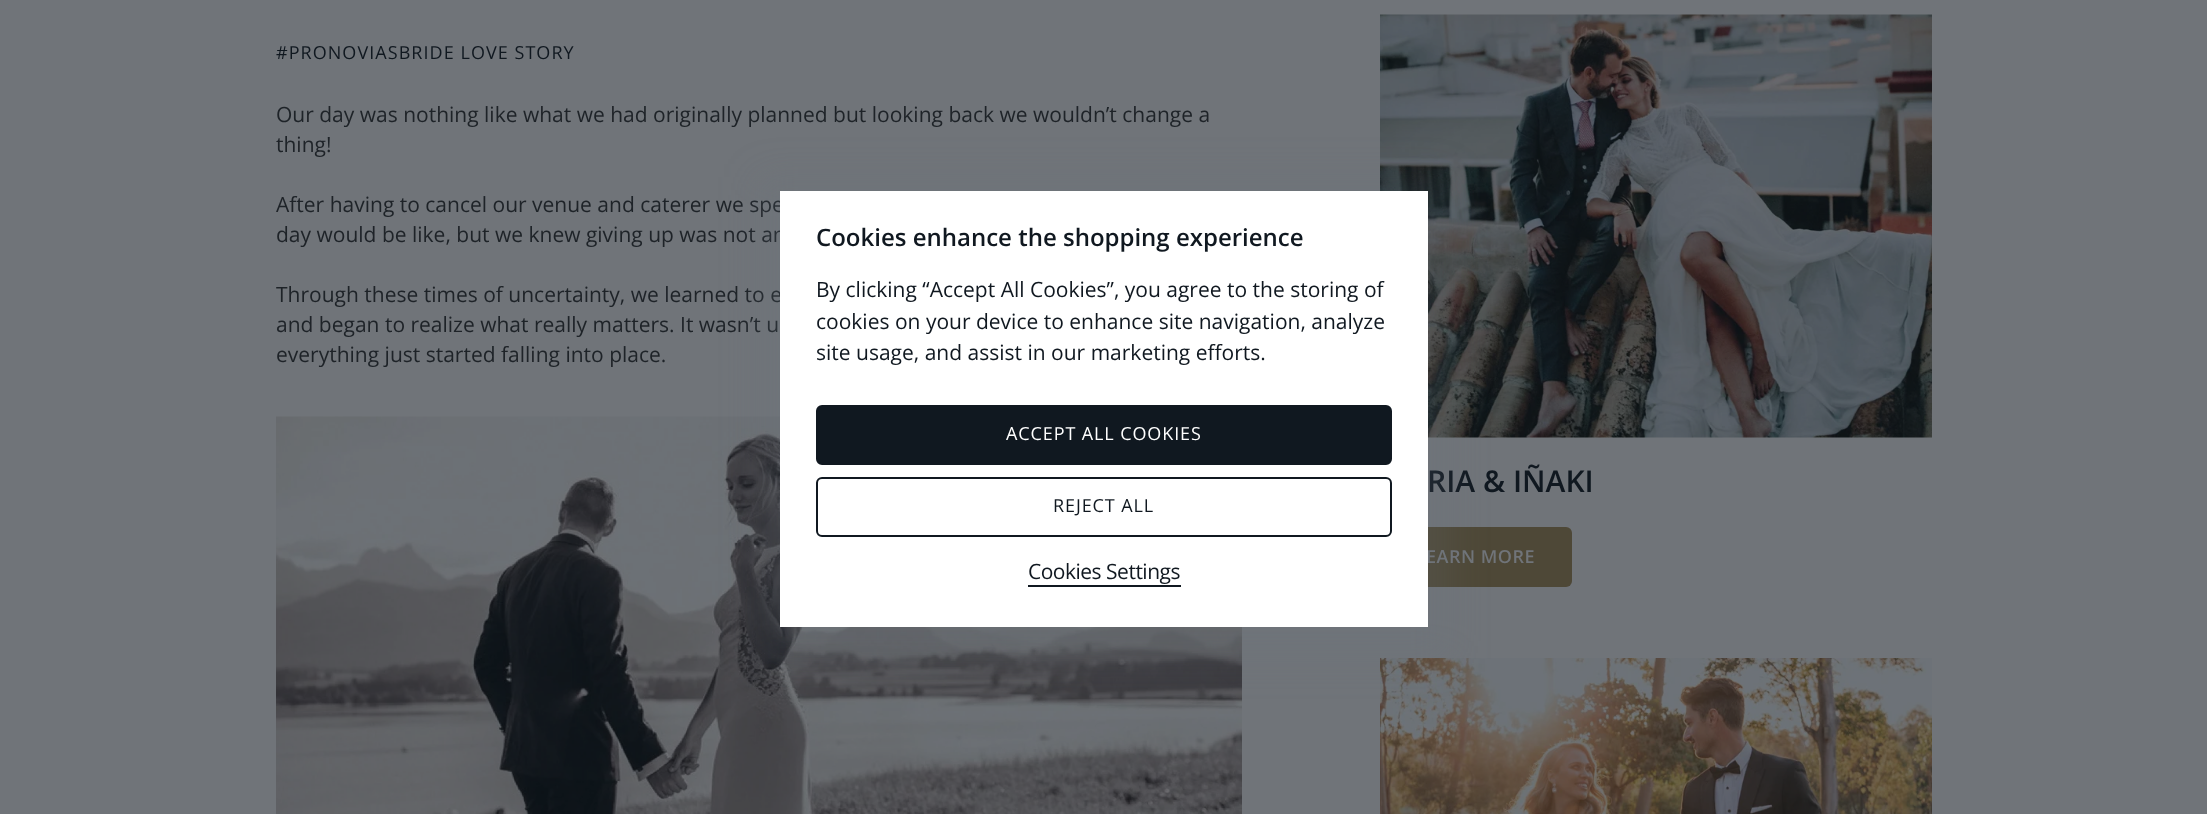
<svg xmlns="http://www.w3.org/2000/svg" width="2207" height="814">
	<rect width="100%" height="100%" fill="#707479" />
	<text x="276" y="59" font-family="Open Sans" font-size="18" letter-spacing="1.05" fill="#101820">#PRONOVIASBRIDE LOVE STORY</text>
	<g font-family="Open Sans" font-size="21" fill="#1E2328">
		<text x="276" y="122">Our day was nothing like what we had originally planned but looking back we wouldn’t change a</text>
		<text x="276" y="152">thing!</text>
		<text x="276" y="212">After having to cancel our venue and caterer we spe</text>
		<text x="276" y="242">day would be like, but we knew giving up was not an</text>
		<text x="276" y="302">Through these times of uncertainty, we learned to e</text>
		<text x="276" y="332">and began to realize what really matters. It wasn’t u</text>
		<text x="276" y="362">everything just started falling into place.</text>
	</g>
	<image x="276" y="416" width="966" height="398" href="assets/img1.png" />
	<image x="1380" y="14" width="552" height="424" href="assets/img2.png" />
	<text x="1427" y="492" font-family="Open Sans" font-size="30" font-weight="600" fill="#101820">RIA &amp; IÑAKI</text>
	<rect x="1380" y="527" width="192" height="60" rx="6" fill="#4E4837" />
	<text x="1426" y="563" font-family="Open Sans" font-size="18" font-weight="600" letter-spacing="0.5" fill="#707479">EARN MORE</text>
	<image x="1380" y="658" width="552" height="156" href="assets/img3.png" />
	<rect x="758" y="177" width="693" height="482" fill="#6A737D" fill-opacity="0.2" filter="blur(19px)" />
	<rect x="780" y="191" width="648" height="436" fill="#FFFFFF" />
	<text x="816" y="246" font-family="Open Sans" font-size="24" font-weight="600" fill="#101820">Cookies enhance the shopping experience</text>
	<g font-family="Open Sans" font-size="21" fill="#101820">
		<text x="816" y="297">By clicking “Accept All Cookies”, you agree to the storing of</text>
		<text x="816" y="329">cookies on your device to enhance site navigation, analyze</text>
		<text x="816" y="360">site usage, and assist in our marketing efforts.</text>
	</g>
	<rect x="817" y="406" width="574" height="58" rx="5" fill="#101820" stroke="#101820" stroke-width="2" />
	<text x="1006" y="440" font-family="Open Sans" font-size="18" letter-spacing="0.9" fill="#FFFFFF">ACCEPT ALL COOKIES</text>
	<rect x="817" y="478" width="574" height="58" rx="5" fill="none" stroke="#101820" stroke-width="2" />
	<text x="1053" y="512" font-family="Open Sans" font-size="18" letter-spacing="0.9" fill="#101820">REJECT ALL</text>
	<text x="1028" y="579" font-family="Open Sans" font-size="21" letter-spacing="-0.5" fill="#101820">Cookies Settings</text>
	<rect x="1028" y="585" width="153" height="2" fill="#101820" />
</svg>
